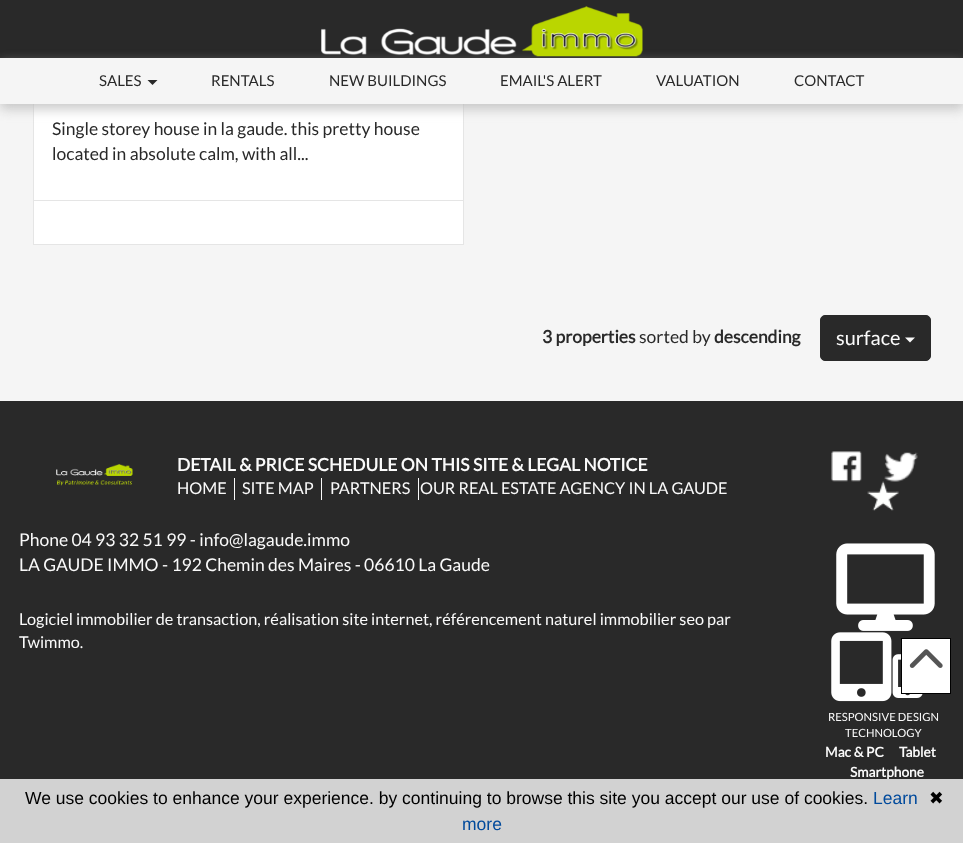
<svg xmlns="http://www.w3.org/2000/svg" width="963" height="843">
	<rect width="100%" height="100%" fill="#F5F5F5" />
	<rect x="34" y="104" width="429" height="140" fill="#FFFFFF" />
	<rect x="33.5" y="-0.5" width="430" height="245" fill="none" stroke="#E5E5E5" />
	<rect x="0" y="0" width="963" height="58" fill="#292929" />
	<rect x="0" y="63" width="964" height="46" fill="#B6B6B6" fill-opacity="0.75" filter="blur(6px)" />
	<image x="321" y="6" width="322" height="51" href="assets/img1.png" />
	<rect x="0" y="58" width="963" height="46" fill="#F5F5F5" />
	<text x="99" y="86" font-family="Lato" font-size="15" fill="#292929">SALES</text>
	<path d="M147.5 80H157.5L152.5 85Z" fill="#292929" />
	<g font-family="Lato" font-size="15" fill="#292929">
		<text x="211" y="86">RENTALS</text>
		<text x="329" y="86">NEW BUILDINGS</text>
		<text x="500" y="86">EMAIL'S ALERT</text>
		<text x="656" y="86">VALUATION</text>
		<text x="794" y="86">CONTACT</text>
	</g>
	<g font-family="Lato" font-size="17.5" fill="#292929">
		<text x="52" y="135">Single storey house in la gaude. this pretty house</text>
		<text x="52" y="160">located in absolute calm, with all...</text>
	</g>
	<rect x="34" y="200" width="429" height="1" fill="#E5E5E5" />
	<text x="542" y="343" font-family="Lato" font-size="17.5" font-weight="700" fill="#292929">3 properties</text>
	<text x="639" y="343" font-family="Lato" font-size="17.5" fill="#292929">sorted by</text>
	<text x="714" y="343" font-family="Lato" font-size="17.5" font-weight="700" fill="#292929">descending</text>
	<rect x="820.5" y="315.5" width="110" height="45" rx="4.5" fill="#292929" stroke="#292929" />
	<text x="836" y="345" font-family="Lato" font-size="20" fill="#FAFAFA">surface</text>
	<path d="M905 337.5H915L910 342.5Z" fill="#FAFAFA" />
	<rect x="0" y="401" width="963" height="378" fill="#292929" />
	<text x="177" y="471" font-family="Lato" font-size="17.5" font-weight="700" fill="#FAFAFA">DETAIL &amp; PRICE SCHEDULE ON THIS SITE &amp; LEGAL NOTICE</text>
	<text x="177" y="494" font-family="Lato" font-size="16.25" fill="#FAFAFA">HOME</text>
	<rect x="234" y="478" width="1" height="22" fill="#FAFAFA" />
	<text x="242" y="494" font-family="Lato" font-size="16.25" fill="#FAFAFA">SITE MAP</text>
	<rect x="321" y="478" width="1" height="22" fill="#FAFAFA" />
	<text x="330" y="494" font-family="Lato" font-size="16.25" fill="#FAFAFA">PARTNERS</text>
	<rect x="418" y="478" width="1" height="22" fill="#FAFAFA" />
	<text x="420" y="494" font-family="Lato" font-size="16.25" fill="#FAFAFA">OUR REAL ESTATE AGENCY IN LA GAUDE</text>
	<g font-family="Lato" font-size="17.5" fill="#FAFAFA">
		<text x="19" y="546">Phone 04 93 32 51 99 - info@lagaude.immo</text>
		<text x="19" y="571">LA GAUDE IMMO - 192 Chemin des Maires - 06610 La Gaude</text>
	</g>
	<image x="56" y="464" width="77" height="22" href="assets/img2.png" />
	<g font-family="Lato" font-size="16.25" fill="#FAFAFA">
		<text x="19" y="625">Logiciel immobilier de transaction, réalisation site internet, référencement naturel immobilier seo par</text>
		<text x="19" y="648">Twimmo.</text>
	</g>
	<image x="831" y="451" width="31" height="31" href="assets/img3.png" />
	<image x="884" y="452" width="34" height="30" href="assets/img4.png" />
	<image x="867" y="481" width="32" height="30" href="assets/img5.png" />
	<image x="836" y="543" width="99" height="88" href="assets/img6.png" />
	<image x="831" y="632" width="61" height="70" href="assets/img7.png" />
	<image x="892" y="654" width="31" height="44" href="assets/img8.png" />
	<g font-family="Lato" font-size="11.25" fill="#FAFAFA">
		<text x="828" y="721">RESPONSIVE DESIGN</text>
		<text x="845" y="737">TECHNOLOGY</text>
	</g>
	<g font-family="Lato" font-size="13.75" font-weight="700" fill="#FAFAFA">
		<text x="825" y="757">Mac &amp; PC</text>
		<text x="899" y="757">Tablet</text>
		<text x="850" y="777">Smartphone</text>
	</g>
	<rect x="901.5" y="638.5" width="49" height="55" fill="#FFFFFF" stroke="#000000" />
	<image x="909" y="649" width="34" height="19" href="assets/img9.png" />
	<rect x="0" y="779" width="963" height="64" fill="#D2D2D2" />
	<text x="25" y="804" font-family="Liberation Sans" font-size="17.5" fill="#000000">We use cookies to enhance your experience. by continuing to browse this site you accept our use of cookies.</text>
	<text x="873" y="804" font-family="Liberation Sans" font-size="17.5" fill="#004A9C">Learn</text>
	<text x="929" y="804" font-family="DejaVu Sans" font-size="17.5" fill="#000000">✖</text>
	<text x="462" y="830" font-family="Liberation Sans" font-size="17.5" fill="#004A9C">more</text>
</svg>
